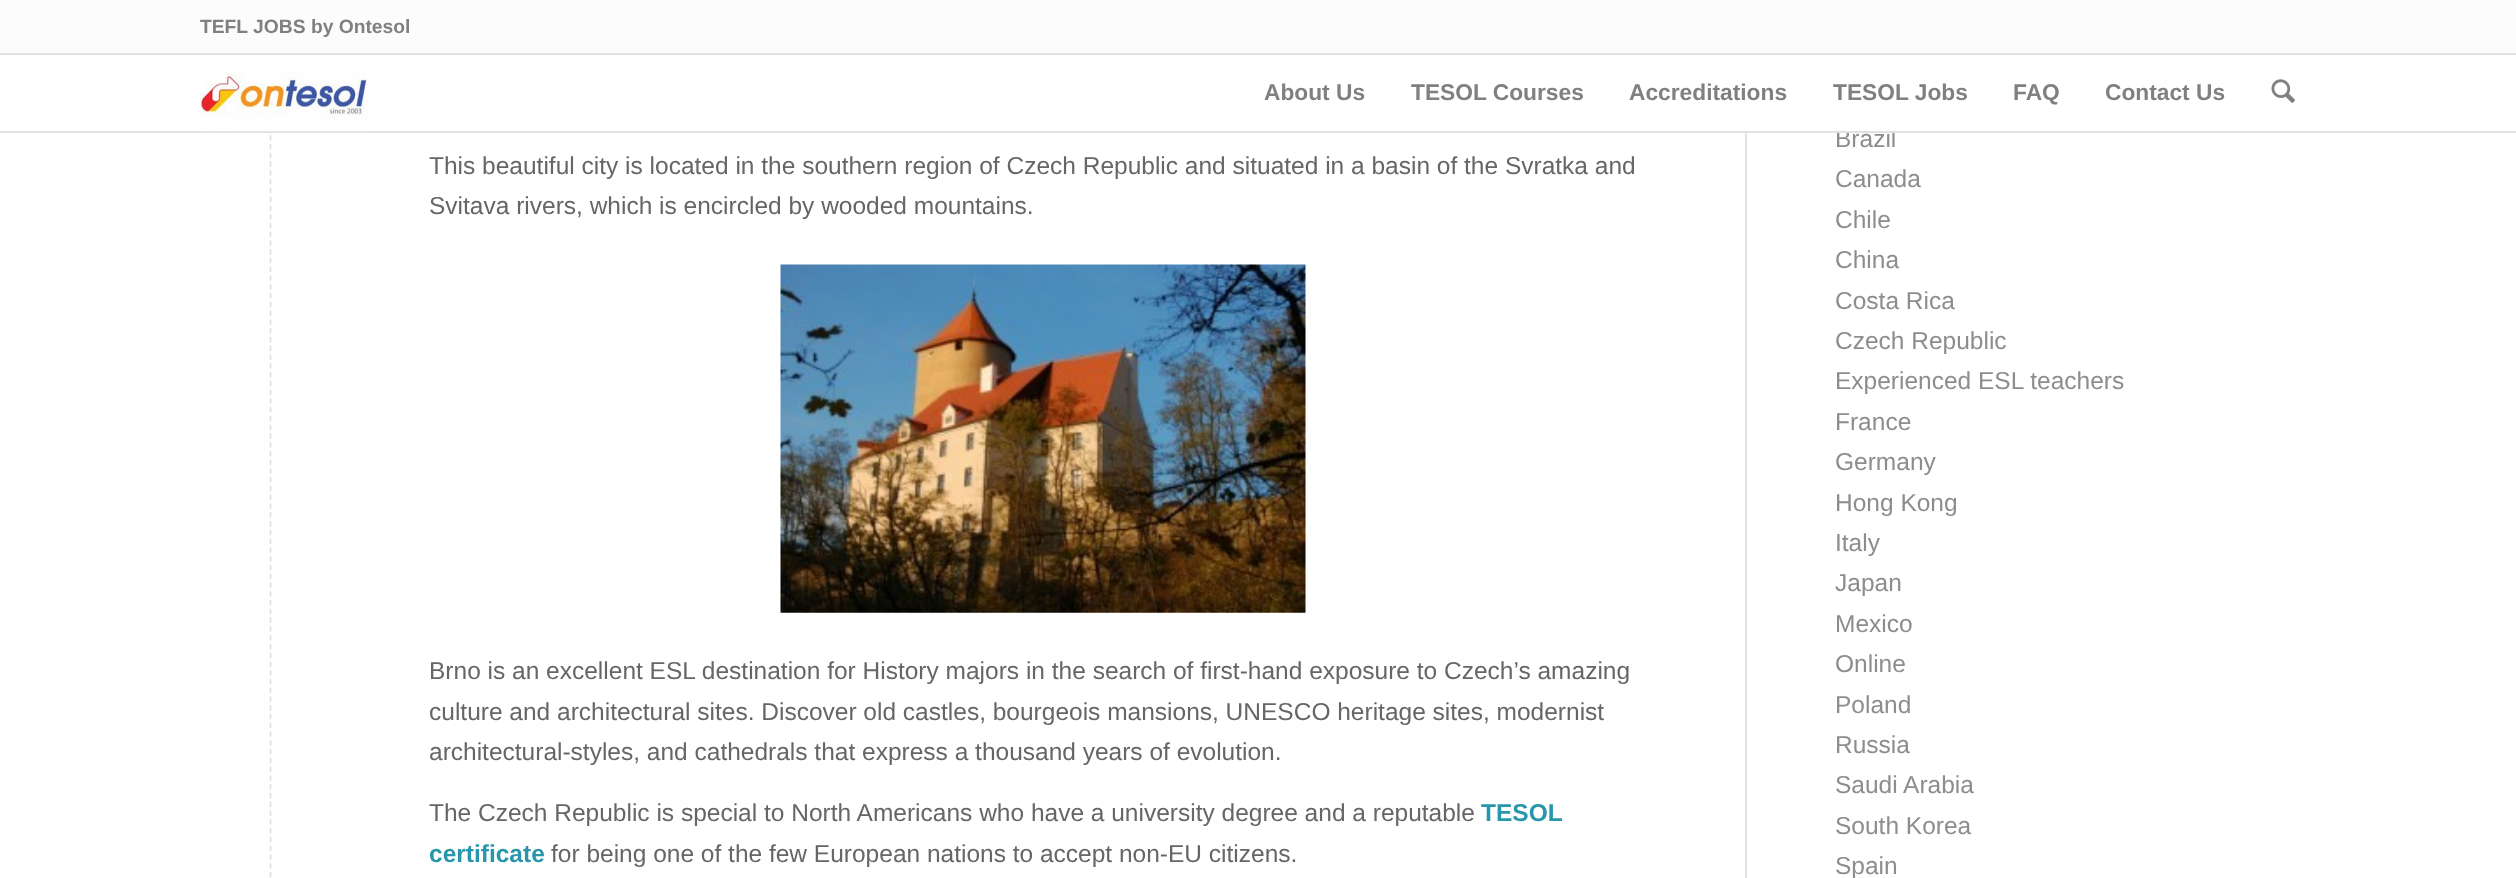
<svg xmlns="http://www.w3.org/2000/svg" width="2516" height="878">
	<rect width="100%" height="100%" fill="#FFFFFF" />
	<path d="M270.5-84V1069" fill="none" stroke="#E1E1E1" stroke-width="1.8" stroke-dasharray="5.25 3.52" />
	<rect x="0" y="0" width="2516" height="53" fill="#FCFCFC" />
	<rect x="0" y="53" width="2516" height="2" fill="#E1E1E1" />
	<text x="200" y="33" font-family="Liberation Sans" font-size="19.25" font-weight="700" fill="#808080">TEFL JOBS by Ontesol</text>
	<rect x="1745" y="55" width="2" height="823" fill="#E1E1E1" />
	<text x="1835" y="147" font-family="Liberation Sans" font-size="24.5" fill="#8D8D8D">Brazil</text>
	<rect x="269" y="55" width="1626" height="76" fill="#FFFFFF" fill-opacity="0.95" />
	<rect x="0" y="131" width="2516" height="2" fill="#E1E1E1" />
	<image x="199" y="55" width="169" height="77" href="assets/img1.png" />
	<g font-family="Liberation Sans" font-size="22.75" font-weight="700" fill="#808080">
		<text x="1264" y="100">About Us</text>
		<text x="1411" y="100">TESOL Courses</text>
		<text x="1629" y="100">Accreditations</text>
		<text x="1833" y="100">TESOL Jobs</text>
		<text x="2013" y="100">FAQ</text>
		<text x="2105" y="100">Contact Us</text>
	</g>
	<image x="2271" y="79" width="24" height="24" href="assets/img2.png" />
	<g font-family="Liberation Sans" font-size="24.5" fill="#666666">
		<text x="429" y="174">This beautiful city is located in the southern region of Czech Republic and situated in a basin of the Svratka and</text>
		<text x="429" y="214">Svitava rivers, which is encircled by wooded mountains.</text>
	</g>
	<image x="780" y="264" width="526" height="349" href="assets/img3.png" />
	<g font-family="Liberation Sans" font-size="24.5" fill="#666666">
		<text x="429" y="679">Brno is an excellent ESL destination for History majors in the search of first-hand exposure to Czech’s amazing</text>
		<text x="429" y="720">culture and architectural sites. Discover old castles, bourgeois mansions, UNESCO heritage sites, modernist</text>
		<text x="429" y="760">architectural-styles, and cathedrals that express a thousand years of evolution.</text>
		<text x="429" y="821">The Czech Republic is special to North Americans who have a university degree and a reputable</text>
	</g>
	<g font-family="Liberation Sans" font-size="24.5" font-weight="700" fill="#2997AB">
		<text x="1481" y="821">TESOL</text>
		<text x="429" y="862">certificate</text>
	</g>
	<text x="551" y="862" font-family="Liberation Sans" font-size="24.5" fill="#666666">for being one of the few European nations to accept non-EU citizens.</text>
	<g font-family="Liberation Sans" font-size="24.5" fill="#8D8D8D">
		<text x="1835" y="187">Canada</text>
		<text x="1835" y="228">Chile</text>
		<text x="1835" y="268">China</text>
		<text x="1835" y="309">Costa Rica</text>
		<text x="1835" y="349">Czech Republic</text>
		<text x="1835" y="389">Experienced ESL teachers</text>
		<text x="1835" y="430">France</text>
		<text x="1835" y="470">Germany</text>
		<text x="1835" y="511">Hong Kong</text>
		<text x="1835" y="551">Italy</text>
		<text x="1835" y="591">Japan</text>
		<text x="1835" y="632">Mexico</text>
		<text x="1835" y="672">Online</text>
		<text x="1835" y="713">Poland</text>
		<text x="1835" y="753">Russia</text>
		<text x="1835" y="793">Saudi Arabia</text>
		<text x="1835" y="834">South Korea</text>
		<text x="1835" y="874">Spain</text>
	</g>
</svg>
